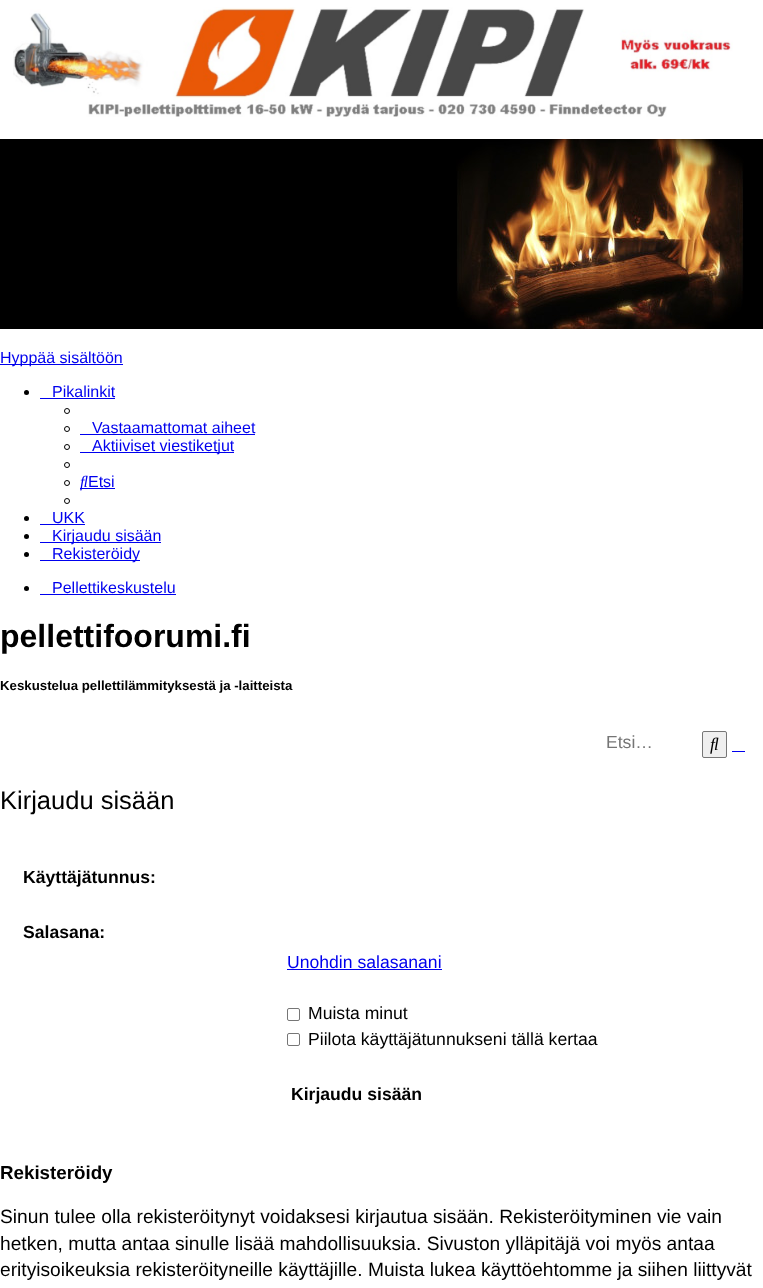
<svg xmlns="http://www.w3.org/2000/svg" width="763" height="1288">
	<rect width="100%" height="100%" fill="#FFFFFF" />
	<image x="13" y="7" width="720" height="110" href="assets/img1.png" />
	<image x="0" y="139" width="763" height="190" href="assets/img2.png" />
	<rect x="0" y="364" width="123" height="1" fill="#0000EE" />
	<text x="0" y="363" font-family="Liberation Sans" font-size="16" fill="#0000EE">Hyppää sisältöön</text>
	<circle cx="26.5" cy="392.5" r="2.5" fill="#000000" />
	<text x="52" y="397" font-family="Liberation Sans" font-size="16" fill="#0000EE">Pikalinkit</text>
	<rect x="40" y="398" width="75" height="1" fill="#0000EE" />
	<circle cx="67" cy="411" r="2.5" fill="none" stroke="#000000" />
	<circle cx="67" cy="429" r="2.5" fill="none" stroke="#000000" />
	<text x="92" y="433" font-family="Liberation Sans" font-size="16" fill="#0000EE">Vastaamattomat aiheet</text>
	<rect x="80" y="434" width="175" height="1" fill="#0000EE" />
	<circle cx="67" cy="447" r="2.5" fill="none" stroke="#000000" />
	<rect x="80" y="452" width="154" height="1" fill="#0000EE" />
	<text x="92" y="451" font-family="Liberation Sans" font-size="16" fill="#0000EE">Aktiiviset viestiketjut</text>
	<circle cx="67" cy="465" r="2.5" fill="none" stroke="#000000" />
	<circle cx="67" cy="483" r="2.5" fill="none" stroke="#000000" />
	<rect x="80" y="488" width="35" height="1" fill="#0000EE" />
	<image x="80" y="475" width="8" height="16" href="assets/img3.png" />
	<text x="88" y="487" font-family="Liberation Sans" font-size="16" fill="#0000EE">Etsi</text>
	<circle cx="67" cy="501" r="2.5" fill="none" stroke="#000000" />
	<circle cx="26.5" cy="518.5" r="2.5" fill="#000000" />
	<text x="52" y="523" font-family="Liberation Sans" font-size="16" fill="#0000EE">UKK</text>
	<rect x="40" y="524" width="45" height="1" fill="#0000EE" />
	<circle cx="26.5" cy="536.5" r="2.5" fill="#000000" />
	<rect x="40" y="542" width="121" height="1" fill="#0000EE" />
	<text x="52" y="541" font-family="Liberation Sans" font-size="16" fill="#0000EE">Kirjaudu sisään</text>
	<circle cx="26.5" cy="554.5" r="2.5" fill="#000000" />
	<rect x="40" y="560" width="100" height="1" fill="#0000EE" />
	<text x="52" y="559" font-family="Liberation Sans" font-size="16" fill="#0000EE">Rekisteröidy</text>
	<circle cx="26.5" cy="588.5" r="2.5" fill="#000000" />
	<text x="52" y="593" font-family="Liberation Sans" font-size="16" fill="#0000EE">Pellettikeskustelu</text>
	<rect x="40" y="594" width="136" height="1" fill="#0000EE" />
	<text x="0" y="647" font-family="Liberation Sans" font-size="32" font-weight="700" fill="#000000">pellettifoorumi.fi</text>
	<text x="0" y="690" font-family="Liberation Sans" font-size="13.25" font-weight="700" fill="#000000">Keskustelua pellettilämmityksestä ja -laitteista</text>
	<text x="606" y="748" font-family="Liberation Sans" font-size="17.6" fill="#757575">Etsi…</text>
	<rect x="702.5" y="731.5" width="24" height="26" rx="1.5" fill="#EFEFEF" stroke="#767676" />
	<image x="710" y="737" width="9" height="17" href="assets/img4.png" />
	<rect x="732" y="751" width="13" height="1" fill="#0000EE" />
	<text x="0" y="809" font-family="Liberation Sans" font-size="25.5" fill="#000000">Kirjaudu sisään</text>
	<g font-family="Liberation Sans" font-size="17.6" font-weight="700" fill="#000000">
		<text x="23" y="883">Käyttäjätunnus:</text>
		<text x="23" y="938">Salasana:</text>
	</g>
	<text x="287" y="968" font-family="Liberation Sans" font-size="17.6" fill="#0000EE">Unohdin salasanani</text>
	<rect x="287" y="969" width="155" height="1" fill="#0000EE" />
	<rect x="287.5" y="1008.5" width="12" height="12" rx="1.5" fill="none" stroke="#767676" />
	<text x="308" y="1019" font-family="Liberation Sans" font-size="17.6" fill="#000000">Muista minut</text>
	<rect x="287.5" y="1033.5" width="12" height="12" rx="1.5" fill="none" stroke="#767676" />
	<text x="308" y="1045" font-family="Liberation Sans" font-size="17.6" fill="#000000">Piilota käyttäjätunnukseni tällä kertaa</text>
	<text x="291" y="1100" font-family="Liberation Sans" font-size="17.6" font-weight="700" fill="#000000">Kirjaudu sisään</text>
	<text x="0" y="1179" font-family="Liberation Sans" font-size="18.75" font-weight="700" fill="#000000">Rekisteröidy</text>
	<g font-family="Liberation Sans" font-size="19.2" fill="#000000">
		<text x="0" y="1223">Sinun tulee olla rekisteröitynyt voidaksesi kirjautua sisään. Rekisteröityminen vie vain</text>
		<text x="0" y="1250">hetken, mutta antaa sinulle lisää mahdollisuuksia. Sivuston ylläpitäjä voi myös antaa</text>
		<text x="0" y="1276">erityisoikeuksia rekisteröityneille käyttäjille. Muista lukea käyttöehtomme ja siihen liittyvät</text>
	</g>
</svg>
